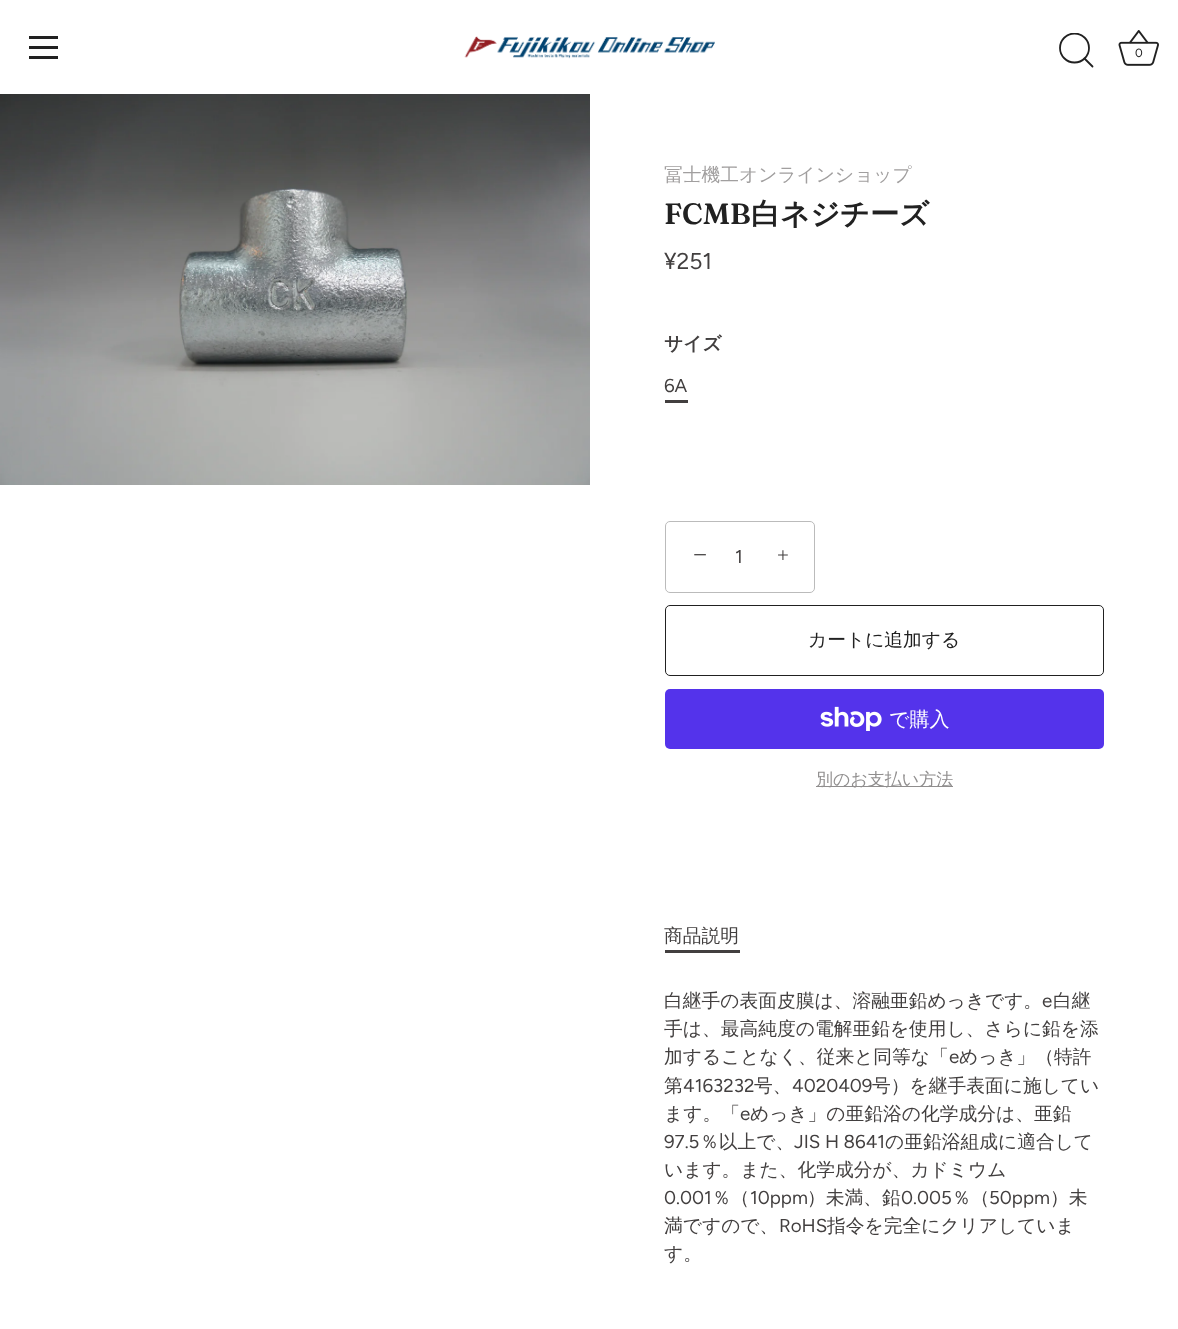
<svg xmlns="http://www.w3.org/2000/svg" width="1178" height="1329">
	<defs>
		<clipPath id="clip1"><rect x="1059" y="33" width="36" height="36" /></clipPath>
	</defs>
	<rect width="100%" height="100%" fill="#FFFFFF" />
	<rect x="29" y="36" width="29" height="3" fill="#212121" />
	<rect x="29" y="46" width="29" height="3" fill="#212121" />
	<rect x="29" y="56" width="29" height="3" fill="#212121" />
	<image x="464" y="36" width="251" height="23" href="assets/img1.png" />
	<g clip-path="url(#clip1)">
		<circle cx="1074.5" cy="48" r="14.5" fill="none" stroke="#212121" stroke-width="1.8" />
	</g>
	<path d="M1092.5 66.5L1084.5 58.5" fill="none" stroke="#212121" stroke-width="1.8" stroke-linecap="round" stroke-linejoin="round" />
	<image x="1118" y="30" width="41" height="36" href="assets/img2.png" />
	<text x="1135" y="57" font-family="Figtree" font-size="12" fill="#212121">0</text>
	<image x="0" y="94" width="590" height="391" href="assets/img3.png" />
	<text x="664" y="181" font-family="WenQuanYi Zen Hei" font-size="18.75" font-weight="500" fill="#A19F9F">冨士機工オンラインショップ</text>
	<text x="664" y="224" font-family="Fraunces" font-size="29.25" font-weight="600" fill="#212121">FCMB</text>
	<text x="751" y="224" font-family="WenQuanYi Zen Hei" font-size="29.25" font-weight="700" fill="#212121">白ネジチーズ</text>
	<text x="664" y="269" font-family="Figtree" font-size="23" fill="#423F3F">¥251</text>
	<text x="664" y="350" font-family="WenQuanYi Zen Hei" font-size="18.75" font-weight="700" fill="#423F3F">サイズ</text>
	<text x="664" y="392" font-family="Figtree" font-size="18.75" fill="#423F3F">6A</text>
	<rect x="665" y="400" width="23" height="3" fill="#423F3F" />
	<rect x="665.5" y="521.5" width="149" height="71" rx="4.5" fill="none" stroke="#BBBBBB" />
	<text x="693" y="563" font-family="Liberation Serif" font-size="25" fill="#423F3F">−</text>
	<text x="735" y="563" font-family="Figtree" font-size="18.75" letter-spacing="1" fill="#423F3F">1</text>
	<text x="777" y="562" font-family="Liberation Serif" font-size="21" fill="#423F3F">+</text>
	<rect x="665.5" y="605.5" width="438" height="70" rx="4.5" fill="none" stroke="#212121" />
	<text x="808" y="646" font-family="WenQuanYi Zen Hei" font-size="18.75" font-weight="500" fill="#212121">カートに追加する</text>
	<rect x="665" y="689" width="439" height="60" rx="5" fill="#5433EB" />
	<image x="820" y="706" width="62" height="25" href="assets/img4.png" />
	<text x="889" y="726" font-family="WenQuanYi Zen Hei" font-size="20" font-weight="500" fill="#FFFFFF">で購入</text>
	<rect x="816" y="786" width="137" height="1" fill="#908E8E" />
	<text x="816" y="785" font-family="WenQuanYi Zen Hei" font-size="17" font-weight="500" fill="#908E8E">別のお支払い方法</text>
	<text x="664" y="942" font-family="WenQuanYi Zen Hei" font-size="18.75" font-weight="500" fill="#423F3F">商品説明</text>
	<rect x="665" y="950" width="75" height="3" fill="#423F3F" />
	<text x="664" y="1007" font-family="WenQuanYi Zen Hei" font-size="18.75" font-weight="500" fill="#423F3F">白継手の表面皮膜は、溶融亜鉛めっきです。</text>
	<text x="1042" y="1007" font-family="Figtree" font-size="18.75" fill="#423F3F">e</text>
	<g font-family="WenQuanYi Zen Hei" font-size="18.75" font-weight="500" fill="#423F3F">
		<text x="1053" y="1007">白継</text>
		<text x="664" y="1035">手は、最高純度の電解亜鉛を使用し、さらに鉛を添</text>
		<text x="664" y="1063">加することなく、従来と同等な「</text>
	</g>
	<text x="949" y="1063" font-family="Figtree" font-size="18.75" fill="#423F3F">e</text>
	<g font-family="WenQuanYi Zen Hei" font-size="18.75" font-weight="500" fill="#423F3F">
		<text x="959" y="1063">めっき」（特許</text>
		<text x="664" y="1092">第</text>
	</g>
	<text x="683" y="1092" font-family="Figtree" font-size="18.75" fill="#423F3F">4163232</text>
	<text x="754" y="1092" font-family="WenQuanYi Zen Hei" font-size="18.75" font-weight="500" fill="#423F3F">号、</text>
	<text x="792" y="1092" font-family="Figtree" font-size="18.75" fill="#423F3F">4020409</text>
	<g font-family="WenQuanYi Zen Hei" font-size="18.75" font-weight="500" fill="#423F3F">
		<text x="872" y="1092">号）を継手表面に施してい</text>
		<text x="664" y="1120">ます。「</text>
	</g>
	<text x="740" y="1120" font-family="Figtree" font-size="18.75" fill="#423F3F">e</text>
	<text x="750" y="1120" font-family="WenQuanYi Zen Hei" font-size="18.75" font-weight="500" fill="#423F3F">めっき」の亜鉛浴の化学成分は、亜鉛</text>
	<text x="664" y="1148" font-family="Figtree" font-size="18.75" fill="#423F3F">97.5</text>
	<text x="700" y="1148" font-family="WenQuanYi Zen Hei" font-size="18.75" font-weight="500" fill="#423F3F">％以上で、</text>
	<text x="794" y="1148" font-family="Figtree" font-size="18.75" fill="#423F3F">JIS H 8641</text>
	<g font-family="WenQuanYi Zen Hei" font-size="18.75" font-weight="500" fill="#423F3F">
		<text x="885" y="1148">の亜鉛浴組成に適合して</text>
		<text x="664" y="1176">います。また、化学成分が、カドミウム</text>
	</g>
	<text x="664" y="1204" font-family="Figtree" font-size="18.75" fill="#423F3F">0.001</text>
	<text x="712" y="1204" font-family="WenQuanYi Zen Hei" font-size="18.75" font-weight="500" fill="#423F3F">％（</text>
	<text x="750" y="1204" font-family="Figtree" font-size="18.75" fill="#423F3F">10ppm</text>
	<text x="807" y="1204" font-family="WenQuanYi Zen Hei" font-size="18.75" font-weight="500" fill="#423F3F">）未満、鉛</text>
	<text x="901" y="1204" font-family="Figtree" font-size="18.75" fill="#423F3F">0.005</text>
	<text x="952" y="1204" font-family="WenQuanYi Zen Hei" font-size="18.75" font-weight="500" fill="#423F3F">％（</text>
	<text x="989" y="1204" font-family="Figtree" font-size="18.75" fill="#423F3F">50ppm</text>
	<g font-family="WenQuanYi Zen Hei" font-size="18.75" font-weight="500" fill="#423F3F">
		<text x="1050" y="1204">）未</text>
		<text x="664" y="1232">満ですので、</text>
	</g>
	<text x="779" y="1232" font-family="Figtree" font-size="18.75" fill="#423F3F">RoHS</text>
	<g font-family="WenQuanYi Zen Hei" font-size="18.75" font-weight="500" fill="#423F3F">
		<text x="827" y="1232">指令を完全にクリアしていま</text>
		<text x="664" y="1260">す。</text>
	</g>
</svg>
